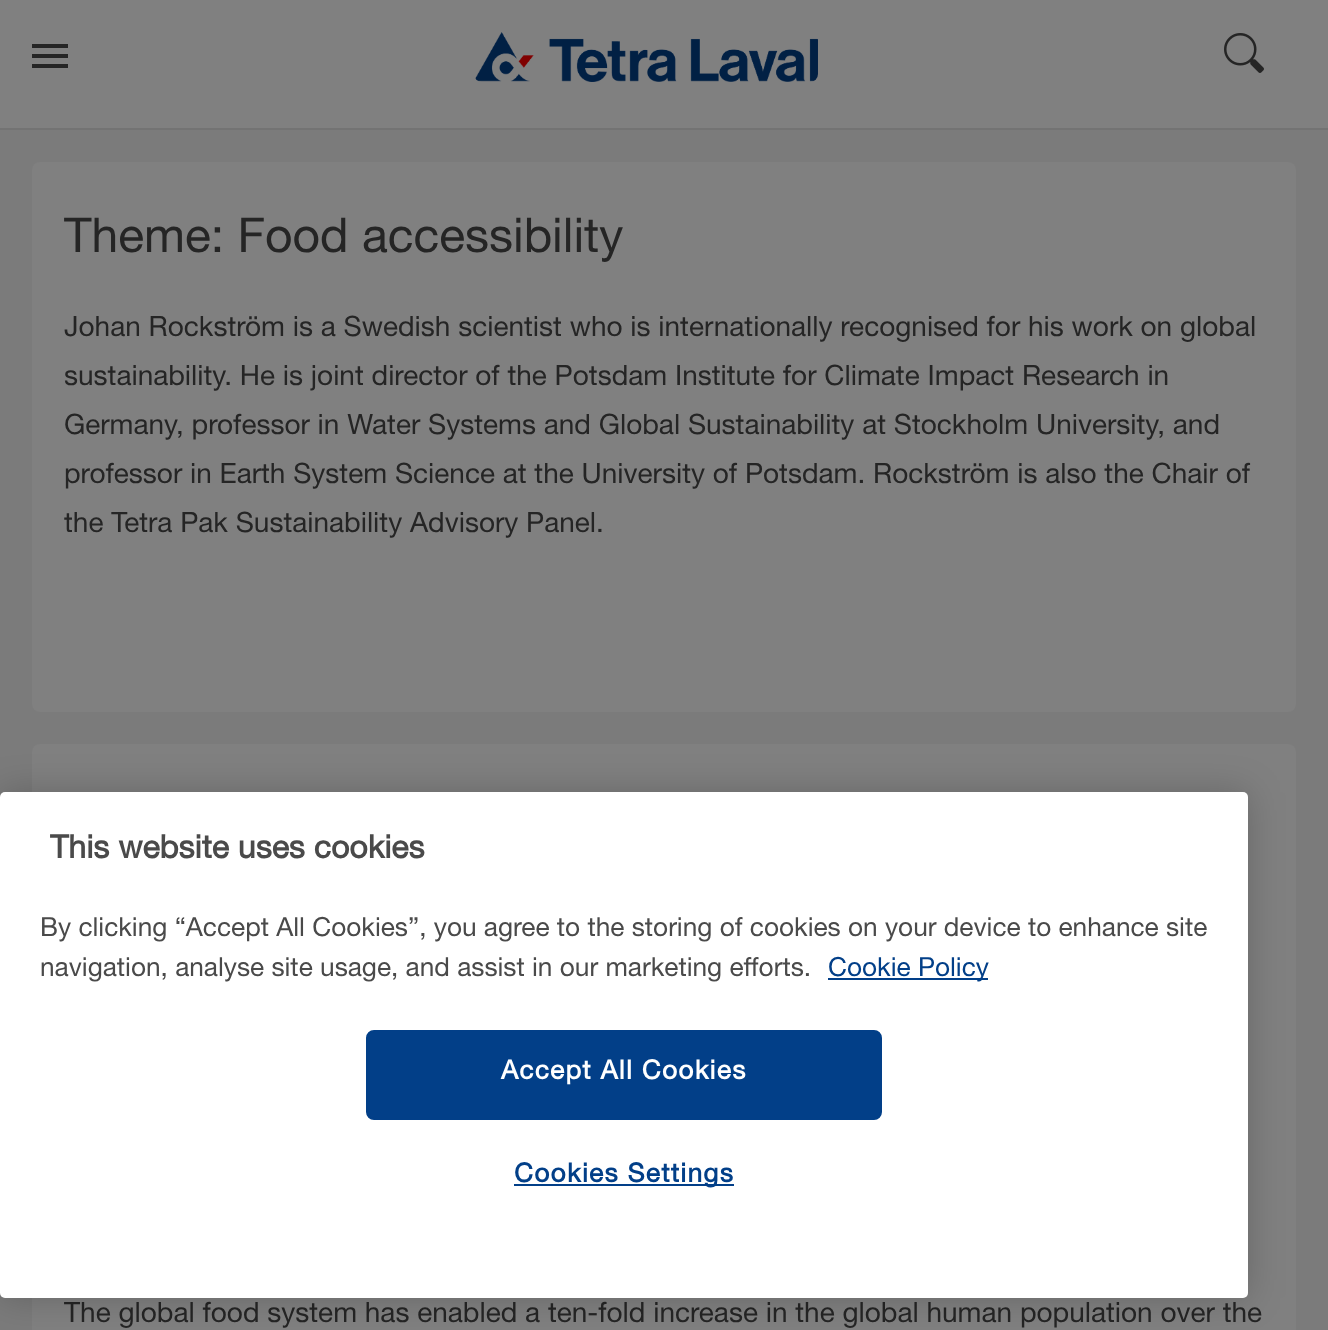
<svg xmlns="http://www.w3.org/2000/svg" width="1328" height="1330">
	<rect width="100%" height="100%" fill="#7B7B7B" />
	<rect x="0" y="0" width="1328" height="128" fill="#808080" />
	<rect x="0" y="128" width="1328" height="2" fill="#737373" />
	<rect x="32" y="54" width="36" height="4" fill="#252525" />
	<rect x="32" y="44" width="36" height="4" fill="#252525" />
	<rect x="32" y="64" width="36" height="4" fill="#252525" />
	<image x="475" y="32" width="343" height="50" href="assets/img1.png" />
	<image x="1224" y="33" width="40" height="40" href="assets/img2.png" />
	<rect x="32" y="162" width="1264" height="550" rx="8" fill="#808080" />
	<text x="64" y="252" font-family="Helvetica Neue" font-size="48" fill="#252525">Theme: Food accessibility</text>
	<g font-family="Helvetica Neue" font-size="28" fill="#252525">
		<text x="64" y="336">Johan Rockström is a Swedish scientist who is internationally recognised for his work on global</text>
		<text x="64" y="385">sustainability. He is joint director of the Potsdam Institute for Climate Impact Research in</text>
		<text x="64" y="434">Germany, professor in Water Systems and Global Sustainability at Stockholm University, and</text>
		<text x="64" y="483">professor in Earth System Science at the University of Potsdam. Rockström is also the Chair of</text>
		<text x="64" y="532">the Tetra Pak Sustainability Advisory Panel.</text>
	</g>
	<rect x="32" y="744" width="1264" height="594" rx="8" fill="#808080" />
	<text x="64" y="1322" font-family="Helvetica Neue" font-size="28" fill="#252525">The global food system has enabled a ten-fold increase in the global human population over the</text>
	<rect x="0" y="792" width="1248" height="506" rx="5" fill="#000000" fill-opacity="0.2" filter="blur(18px)" />
	<rect x="0" y="792" width="1248" height="506" rx="5" fill="#FFFFFF" />
	<text x="50" y="858" font-family="Helvetica Neue" font-size="32" font-weight="700" fill="#4A4A4A">This website uses cookies</text>
	<g font-family="Helvetica Neue" font-size="26.25" fill="#4A4A4A">
		<text x="40" y="936">By clicking “Accept All Cookies”, you agree to the storing of cookies on your device to enhance site</text>
		<text x="40" y="976">navigation, analyse site usage, and assist in our marketing efforts.</text>
	</g>
	<rect x="828" y="978" width="160" height="2" fill="#023F88" />
	<text x="828" y="976" font-family="Helvetica Neue" font-size="26.25" fill="#023F88">Cookie Policy</text>
	<rect x="367" y="1031" width="514" height="88" rx="7" fill="#023F88" stroke="#023F88" stroke-width="2" />
	<text x="501" y="1079" font-family="Helvetica Neue" font-size="26.25" font-weight="700" letter-spacing="1.3" fill="#FFFFFF">Accept All Cookies</text>
	<rect x="514" y="1184" width="220" height="2" fill="#023F88" />
	<text x="514" y="1182" font-family="Helvetica Neue" font-size="26.25" font-weight="700" letter-spacing="1.3" fill="#023F88">Cookies Settings</text>
</svg>
